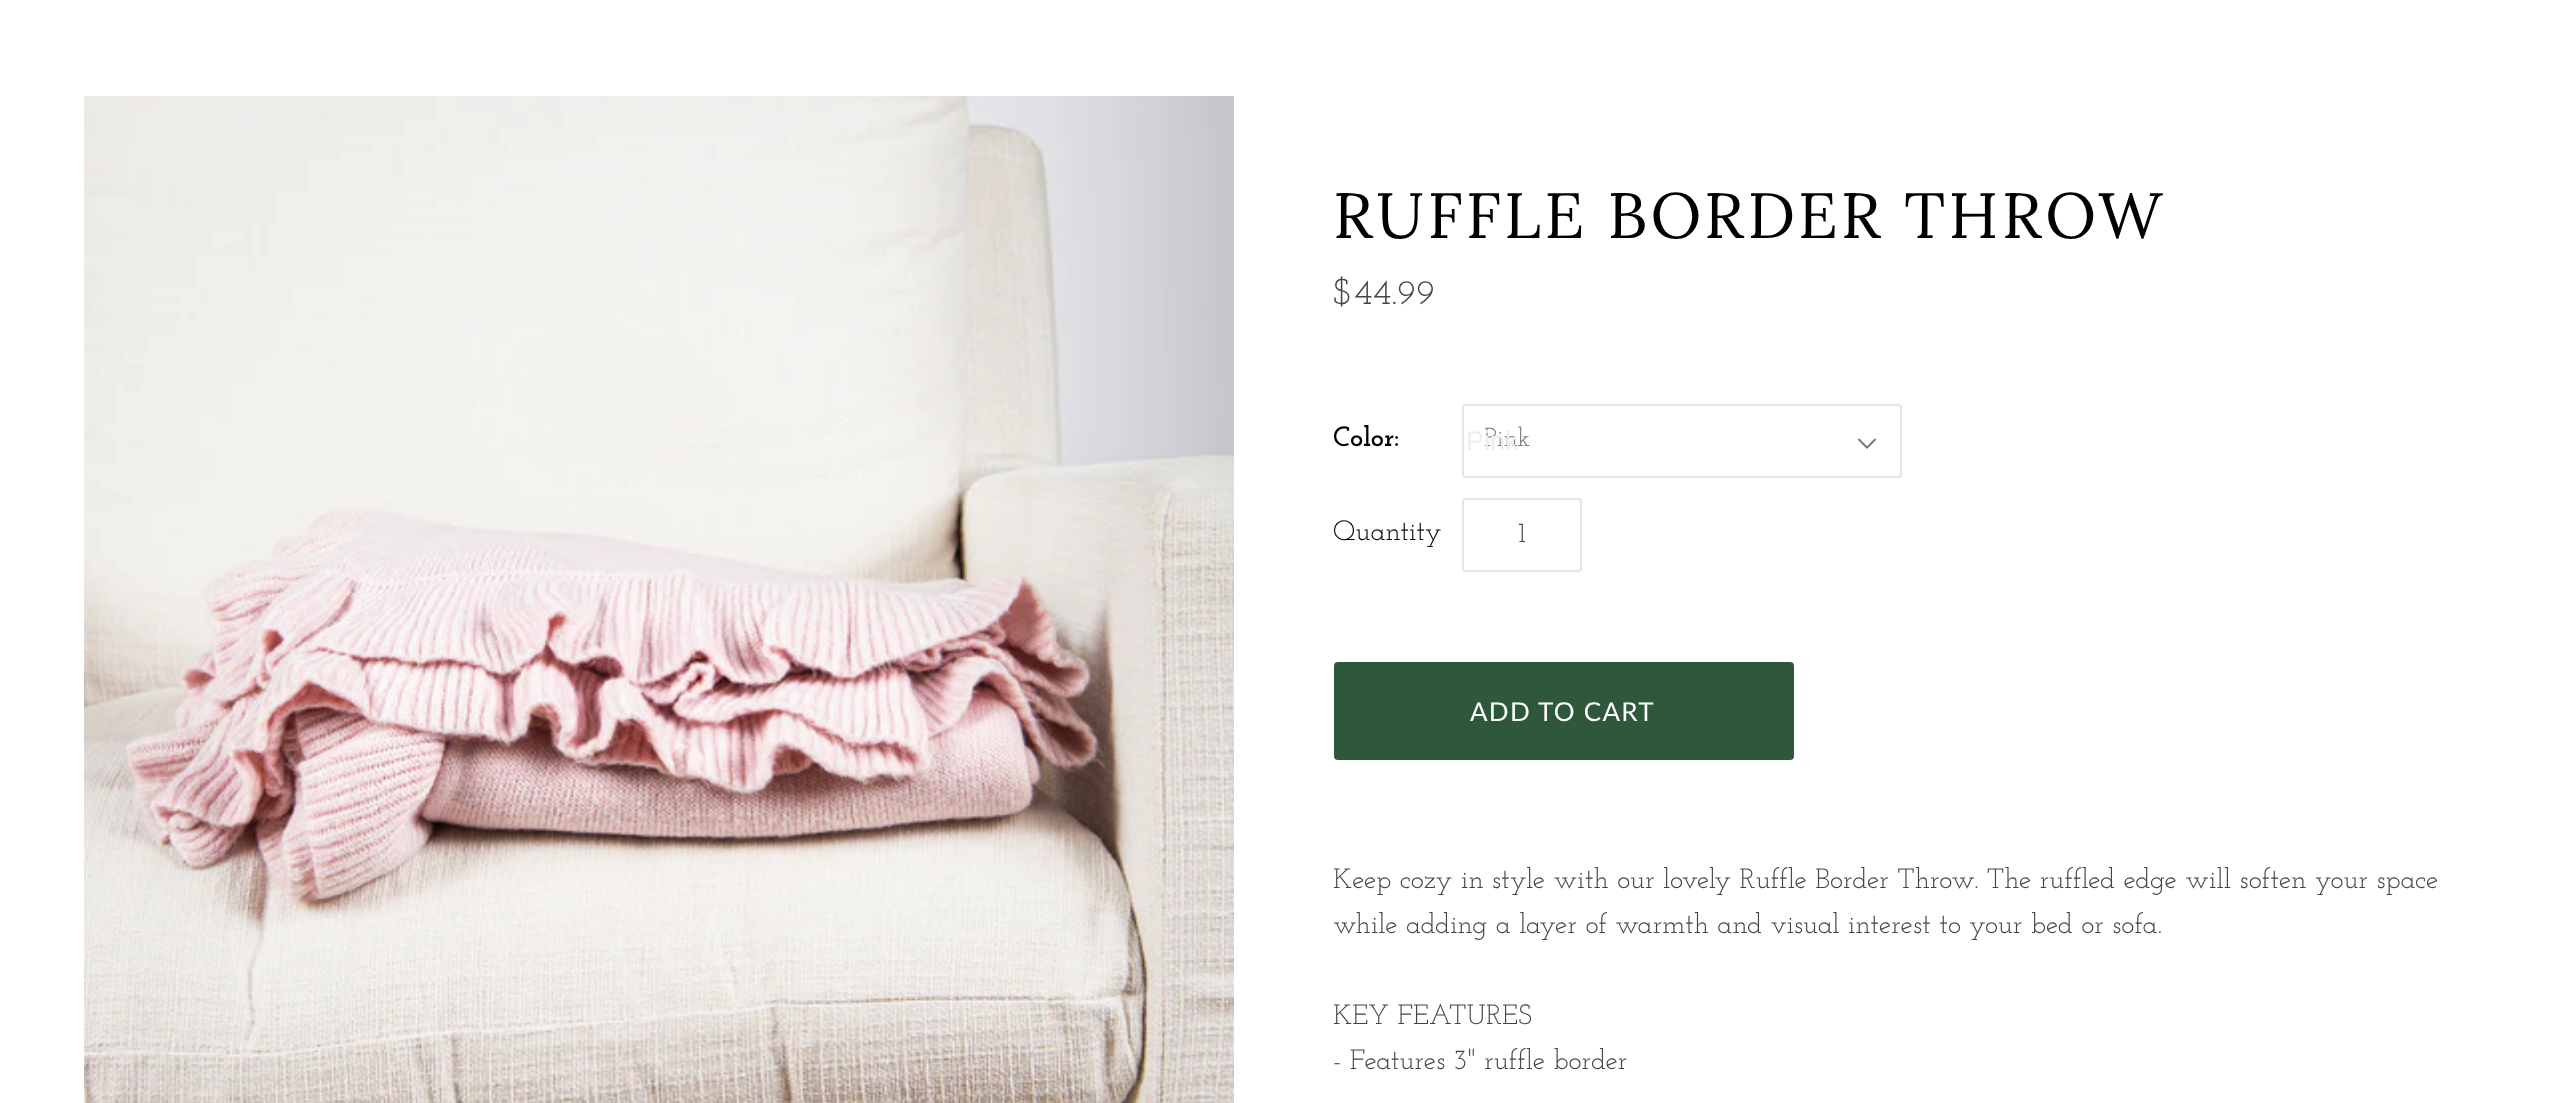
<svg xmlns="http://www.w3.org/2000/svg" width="2566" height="1103">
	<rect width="100%" height="100%" fill="#FFFFFF" />
	<image x="84" y="96" width="1150" height="1007" href="assets/img1.png" />
	<text x="1333" y="238" font-family="Lora" font-size="64" letter-spacing="3.25" fill="#000000">RUFFLE BORDER THROW</text>
	<text x="1333" y="304" font-family="Josefin Slab" font-size="36" fill="#444444">$44.99</text>
	<text x="1333" y="446" font-family="Josefin Slab" font-size="28" font-weight="700" fill="#000000">Color:</text>
	<rect x="1463" y="405" width="438" height="72" rx="3" fill="none" stroke="#E4E4E4" stroke-width="2" />
	<text x="1484" y="446" font-family="Josefin Slab" font-size="26" fill="#787878">Pink</text>
	<text x="1466" y="450" font-family="Liberation Sans" font-size="27" fill="#EEEEEE">Pink</text>
	<image x="1858" y="438" width="18" height="11" href="assets/img2.png" />
	<text x="1333" y="540" font-family="Josefin Slab" font-size="28" fill="#000000">Quantity</text>
	<rect x="1463" y="499" width="118" height="72" rx="3" fill="none" stroke="#E4E4E4" stroke-width="2" />
	<text x="1518" y="542" font-family="Josefin Slab" font-size="28" fill="#444444">1</text>
	<rect x="1334" y="662" width="460" height="98" rx="4" fill="#2F583A" />
	<text x="1470" y="721" font-family="Lato" font-size="26" letter-spacing="1.25" fill="#FFFFFF">ADD TO CART</text>
	<g font-family="Josefin Slab" font-size="28" fill="#444444">
		<text x="1333" y="888">Keep cozy in style with our lovely Ruffle Border Throw. The ruffled edge will soften your space</text>
		<text x="1333" y="933">while adding a layer of warmth and visual interest to your bed or sofa.</text>
		<text x="1333" y="1024">KEY FEATURES</text>
		<text x="1333" y="1069">- Features 3" ruffle border</text>
	</g>
</svg>
